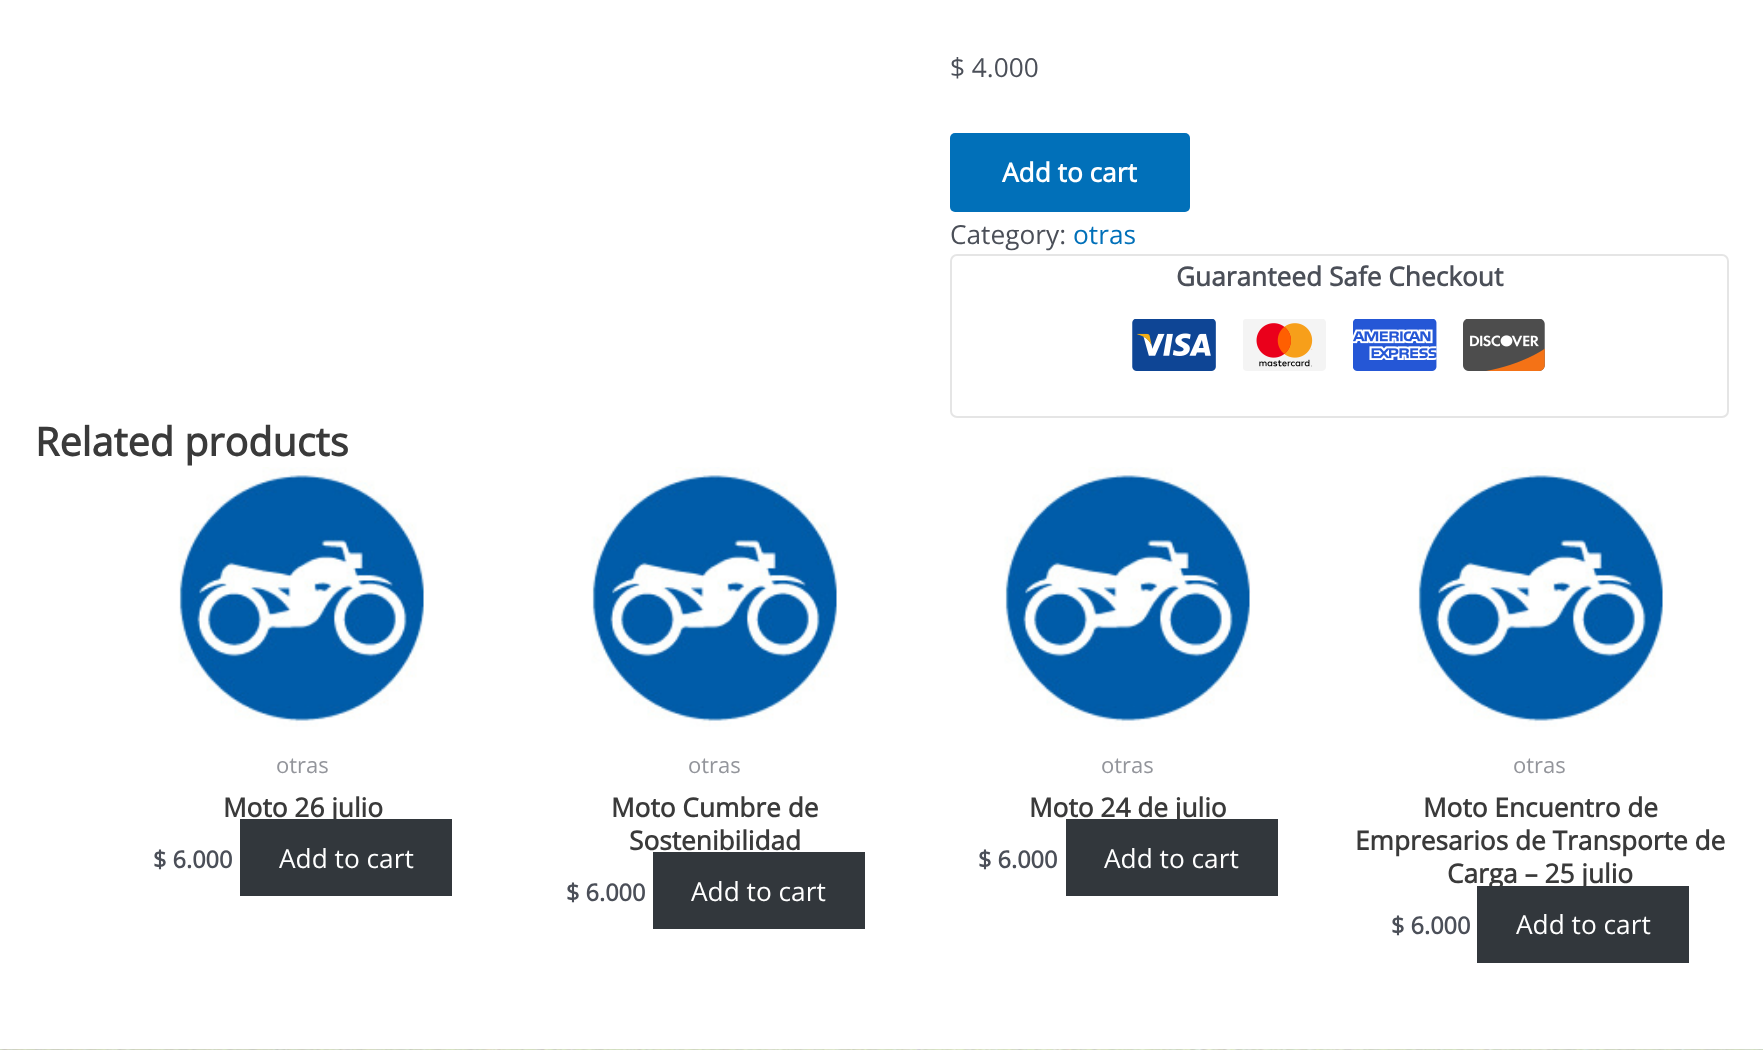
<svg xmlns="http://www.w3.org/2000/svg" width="1763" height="1050">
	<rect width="100%" height="100%" fill="#FFFFFF" />
	<image x="0" y="1049" width="1763" height="1" href="assets/img1.png" />
	<text x="950" y="77" font-family="Open Sans" font-size="26.25" fill="#4B4F58">$ 4.000</text>
	<rect x="950" y="133" width="240" height="79" rx="5" fill="#0170B9" />
	<text x="1002" y="182" font-family="Open Sans" font-size="26.25" font-weight="700" fill="#FFFFFF">Add to cart</text>
	<text x="950" y="244" font-family="Open Sans" font-size="26.25" fill="#4B4F58">Category:</text>
	<text x="1073" y="244" font-family="Open Sans" font-size="26.25" fill="#0170B9">otras</text>
	<rect x="951" y="255" width="777" height="162" rx="6" fill="none" stroke="#E5E5E5" stroke-width="2" />
	<text x="1176" y="286" font-family="Open Sans" font-size="26.25" font-weight="700" fill="#4B4F58">Guaranteed Safe Checkout</text>
	<image x="1132" y="319" width="84" height="52" href="assets/img2.png" />
	<image x="1243" y="319" width="83" height="52" href="assets/img3.png" />
	<image x="1353" y="319" width="84" height="52" href="assets/img4.png" />
	<image x="1463" y="319" width="82" height="52" href="assets/img5.png" />
	<text x="35" y="456" font-family="Open Sans" font-size="39.5" font-weight="700" fill="#3A3A3A">Related products</text>
	<image x="178" y="467" width="247" height="260" href="assets/img6.png" />
	<text x="276" y="773" font-family="Open Sans" font-size="22" fill="#93959B">otras</text>
	<text x="223" y="817" font-family="Open Sans" font-size="26.25" font-weight="700" fill="#3A3A3A">Moto 26 julio</text>
	<text x="153" y="868" font-family="Open Sans" font-size="23.5" font-weight="700" fill="#4B4F58">$ 6.000</text>
	<rect x="240" y="819" width="212" height="77" fill="#32373C" />
	<text x="279" y="868" font-family="Open Sans" font-size="26.25" fill="#FFFFFF">Add to cart</text>
	<image x="591" y="467" width="247" height="260" href="assets/img7.png" />
	<text x="688" y="773" font-family="Open Sans" font-size="22" fill="#93959B">otras</text>
	<g font-family="Open Sans" font-size="26.25" font-weight="700" fill="#3A3A3A">
		<text x="611" y="817">Moto Cumbre de</text>
		<text x="629" y="850">Sostenibilidad</text>
	</g>
	<text x="566" y="901" font-family="Open Sans" font-size="23.5" font-weight="700" fill="#4B4F58">$ 6.000</text>
	<rect x="653" y="852" width="212" height="77" fill="#32373C" />
	<text x="691" y="901" font-family="Open Sans" font-size="26.25" fill="#FFFFFF">Add to cart</text>
	<image x="1004" y="467" width="247" height="260" href="assets/img8.png" />
	<text x="1101" y="773" font-family="Open Sans" font-size="22" fill="#93959B">otras</text>
	<text x="1029" y="817" font-family="Open Sans" font-size="26.25" font-weight="700" fill="#3A3A3A">Moto 24 de julio</text>
	<text x="978" y="868" font-family="Open Sans" font-size="23.5" font-weight="700" fill="#4B4F58">$ 6.000</text>
	<rect x="1066" y="819" width="212" height="77" fill="#32373C" />
	<text x="1104" y="868" font-family="Open Sans" font-size="26.25" fill="#FFFFFF">Add to cart</text>
	<image x="1417" y="467" width="247" height="260" href="assets/img9.png" />
	<text x="1513" y="773" font-family="Open Sans" font-size="22" fill="#93959B">otras</text>
	<g font-family="Open Sans" font-size="26.25" font-weight="700" fill="#3A3A3A">
		<text x="1423" y="817">Moto Encuentro de</text>
		<text x="1355" y="850">Empresarios de Transporte de</text>
		<text x="1447" y="883">Carga – 25 julio</text>
	</g>
	<text x="1391" y="934" font-family="Open Sans" font-size="23.5" font-weight="700" fill="#4B4F58">$ 6.000</text>
	<rect x="1477" y="886" width="212" height="77" fill="#32373C" />
	<text x="1516" y="934" font-family="Open Sans" font-size="26.25" fill="#FFFFFF">Add to cart</text>
</svg>
